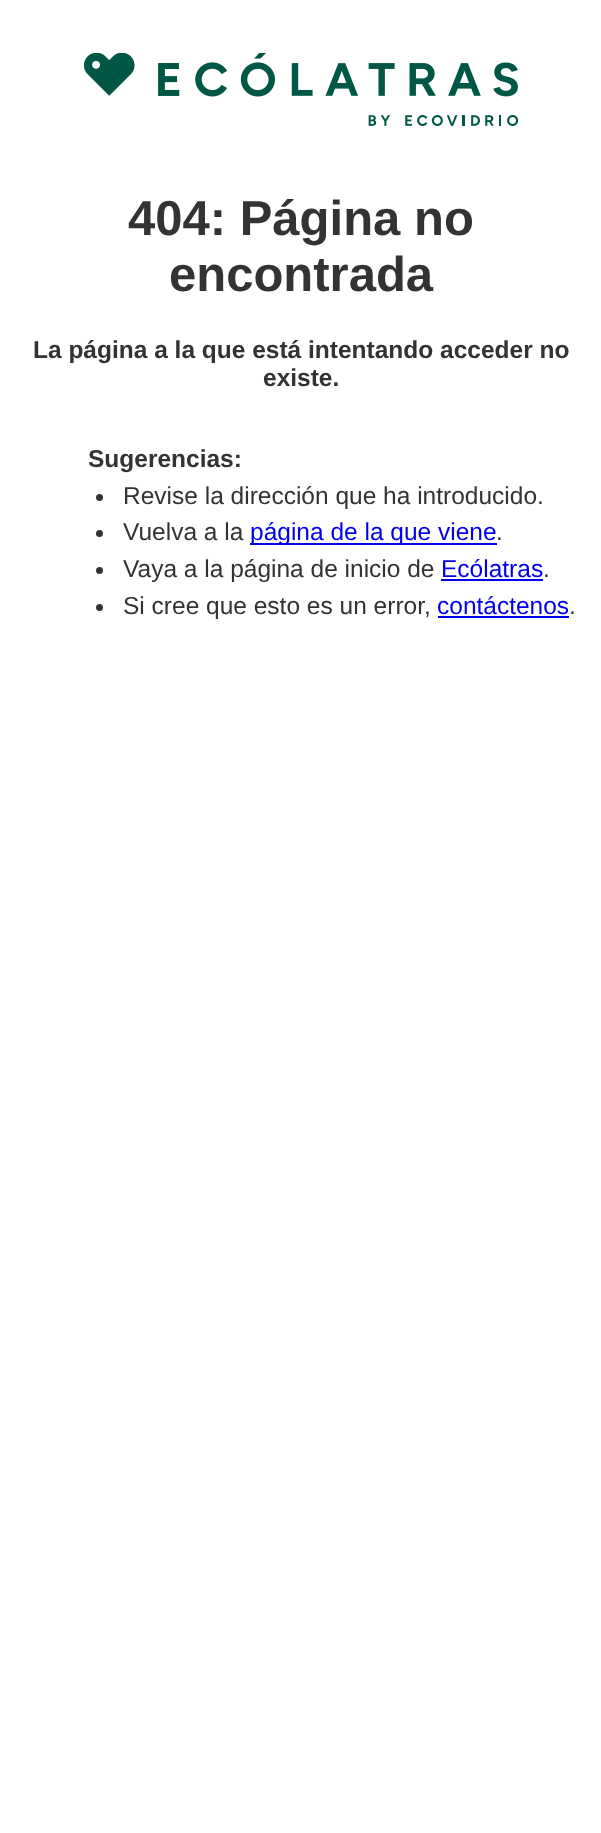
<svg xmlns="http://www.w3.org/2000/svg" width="601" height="1833">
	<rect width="100%" height="100%" fill="#FFFFFF" />
	<image x="83" y="53" width="436" height="73" href="assets/img1.png" />
	<g font-family="Liberation Sans" font-size="49" font-weight="700" fill="#333333">
		<text x="128" y="235">404: Página no</text>
		<text x="169" y="291">encontrada</text>
	</g>
	<g font-family="Liberation Sans" font-size="24.5" font-weight="700" fill="#333333">
		<text x="33" y="358">La página a la que está intentando acceder no</text>
		<text x="263" y="386">existe.</text>
		<text x="88" y="467">Sugerencias:</text>
	</g>
	<circle cx="99.5" cy="497.5" r="3.5" fill="#333333" />
	<text x="123" y="504" font-family="Liberation Sans" font-size="24.5" fill="#333333">Revise la dirección que ha introducido.</text>
	<circle cx="99.5" cy="533.5" r="3.5" fill="#333333" />
	<text x="123" y="540" font-family="Liberation Sans" font-size="24.5" fill="#333333">Vuelva a la</text>
	<rect x="250" y="543" width="247" height="2" fill="#0000EE" />
	<text x="250" y="540" font-family="Liberation Sans" font-size="24.5" fill="#0000EE">página de la que viene</text>
	<text x="496" y="540" font-family="Liberation Sans" font-size="24.5" fill="#333333">.</text>
	<circle cx="99.5" cy="570.5" r="3.5" fill="#333333" />
	<text x="123" y="577" font-family="Liberation Sans" font-size="24.5" fill="#333333">Vaya a la página de inicio de</text>
	<text x="441" y="577" font-family="Liberation Sans" font-size="24.5" fill="#0000EE">Ecólatras</text>
	<rect x="441" y="579" width="102" height="2" fill="#0000EE" />
	<text x="543" y="577" font-family="Liberation Sans" font-size="24.5" fill="#333333">.</text>
	<circle cx="99.5" cy="607.5" r="3.5" fill="#333333" />
	<text x="123" y="614" font-family="Liberation Sans" font-size="24.5" fill="#333333">Si cree que esto es un error,</text>
	<text x="437" y="614" font-family="Liberation Sans" font-size="24.5" fill="#0000EE">contáctenos</text>
	<rect x="438" y="616" width="131" height="2" fill="#0000EE" />
	<text x="569" y="614" font-family="Liberation Sans" font-size="24.5" fill="#333333">.</text>
</svg>
